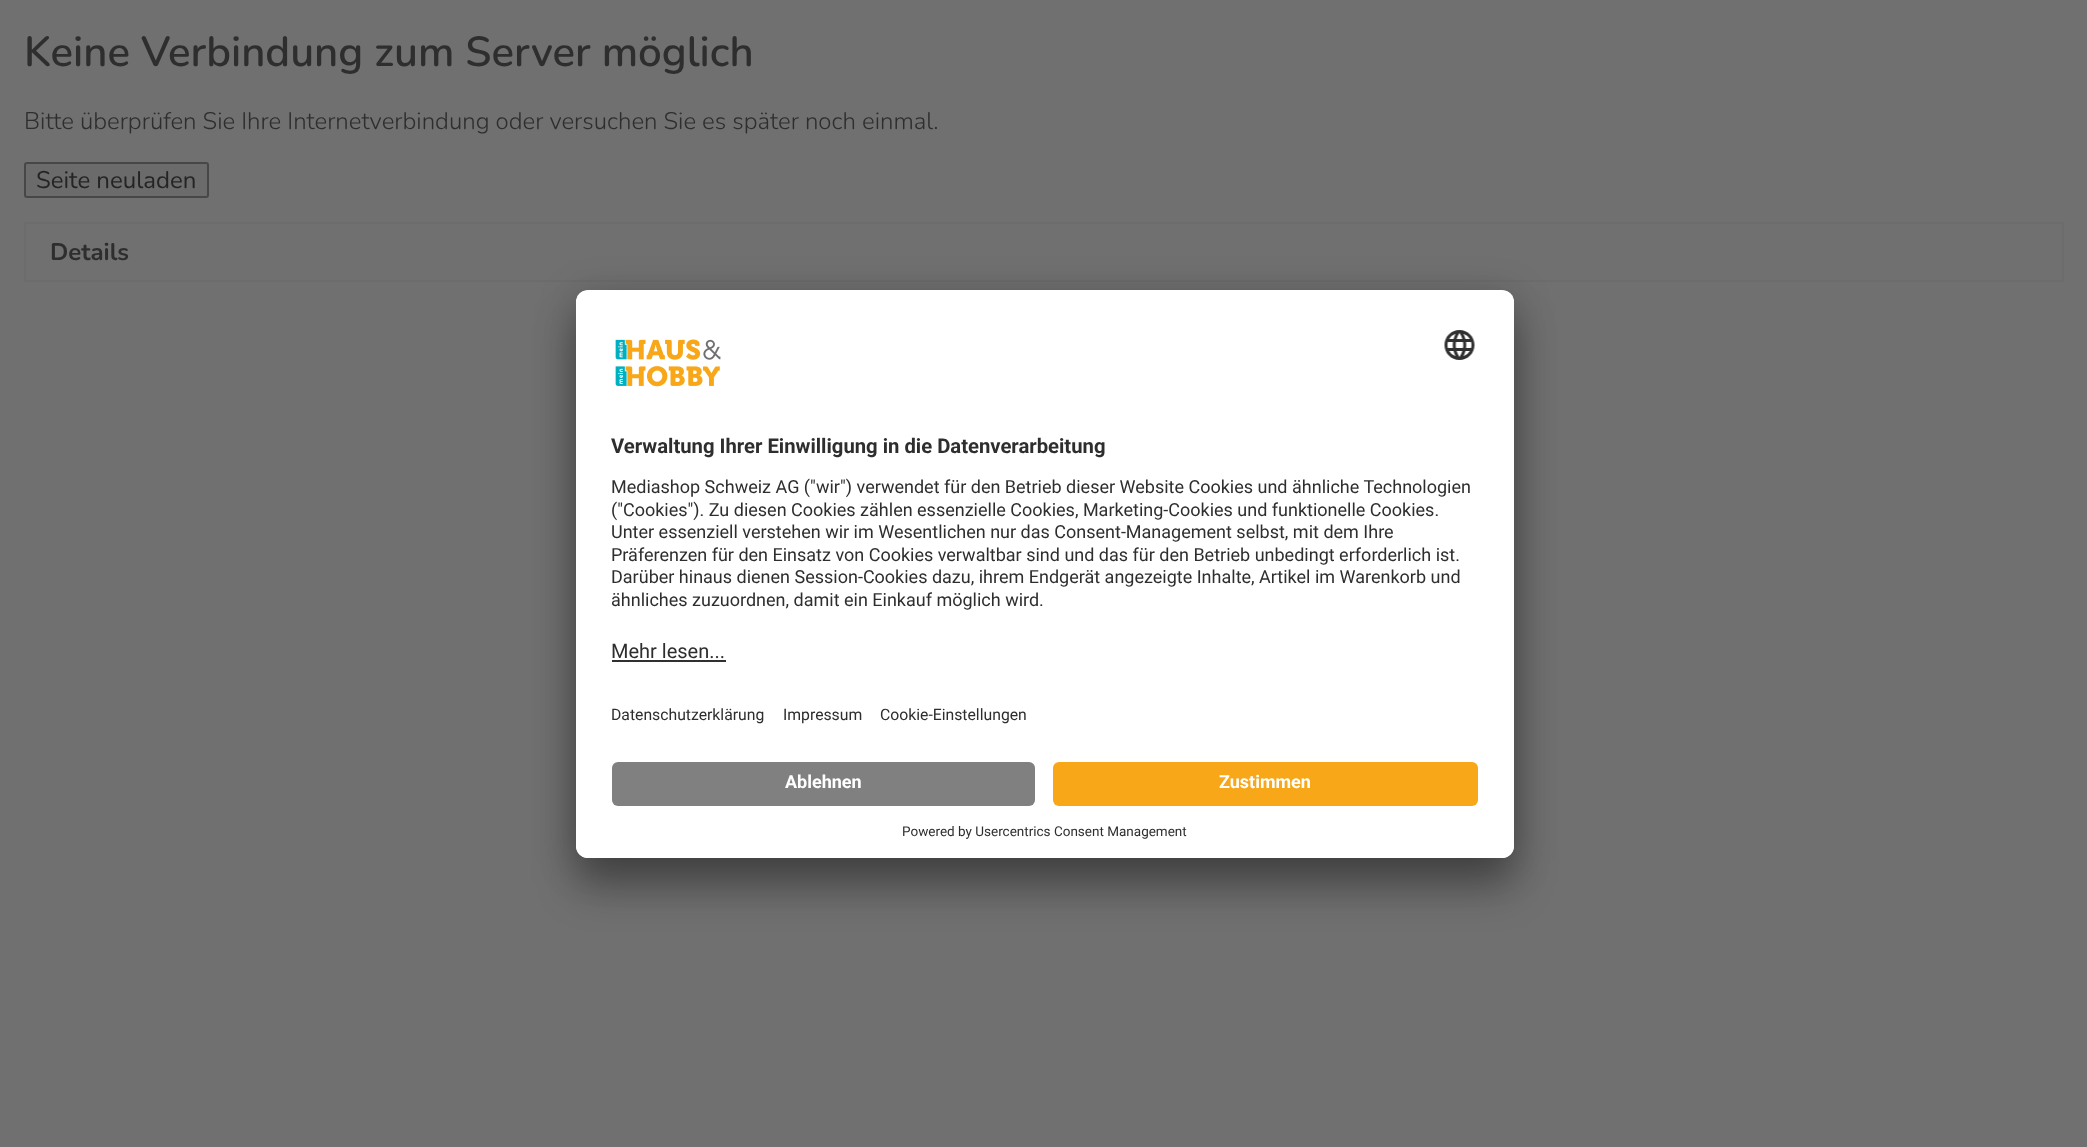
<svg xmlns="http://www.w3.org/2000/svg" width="2087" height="1147">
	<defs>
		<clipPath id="clip1"><rect x="576" y="290" width="938" height="568" rx="12" /></clipPath>
		<clipPath id="clip2"><path d="M588 290H1502C1508.5 290 1514 295.5 1514 302V750H576V302C576 295.5 581.5 290 588 290Z" /></clipPath>
	</defs>
	<rect width="100%" height="100%" fill="#707070" />
	<text x="24" y="66" font-family="Nunito" font-size="42" font-weight="600" fill="#2E2E2E">Keine Verbindung zum Server möglich</text>
	<text x="24" y="129" font-family="Nunito" font-size="24" font-weight="300" fill="#2E2E2E">Bitte überprüfen Sie Ihre Internetverbindung oder versuchen Sie es später noch einmal.</text>
	<rect x="25" y="163" width="183" height="34" rx="2" fill="#6B6B6B" stroke="#474747" stroke-width="2" />
	<text x="36" y="188" font-family="Nunito" font-size="24" fill="#242424">Seite neuladen</text>
	<rect x="25" y="223" width="2038" height="58" fill="none" stroke="#6C6C6C" stroke-width="2" />
	<text x="50" y="260" font-family="Nunito" font-size="24" font-weight="700" fill="#2E2E2E">Details</text>
	<rect x="576" y="320" width="938" height="568" rx="12" fill="#000000" fill-opacity="0.3" filter="blur(21px)" />
	<rect x="576" y="297" width="938" height="569" rx="12" fill="#000000" fill-opacity="0.22" filter="blur(19.5px)" />
	<rect x="576" y="290" width="938" height="568" rx="12" fill="#FFFFFF" />
	<g clip-path="url(#clip1)">
		<g clip-path="url(#clip2)">
			<rect x="576" y="291" width="938" height="459" fill="#FFFFFF" />
		</g>
	</g>
	<image x="615" y="339" width="106" height="48" href="assets/img1.png" />
	<image x="1444" y="330" width="31" height="30" href="assets/img2.png" />
	<text x="611" y="453" font-family="Roboto" font-size="20.25" font-weight="700" fill="#2E2E2E">Verwaltung Ihrer Einwilligung in die Datenverarbeitung</text>
	<g font-family="Roboto" font-size="18" fill="#2E2E2E">
		<text x="611" y="493">Mediashop Schweiz AG ("wir") verwendet für den Betrieb dieser Website Cookies und ähnliche Technologien</text>
		<text x="611" y="516">("Cookies"). Zu diesen Cookies zählen essenzielle Cookies, Marketing-Cookies und funktionelle Cookies.</text>
		<text x="611" y="538">Unter essenziell verstehen wir im Wesentlichen nur das Consent-Management selbst, mit dem Ihre</text>
		<text x="611" y="561">Präferenzen für den Einsatz von Cookies verwaltbar sind und das für den Betrieb unbedingt erforderlich ist.</text>
		<text x="611" y="583">Darüber hinaus dienen Session-Cookies dazu, ihrem Endgerät angezeigte Inhalte, Artikel im Warenkorb und</text>
		<text x="611" y="606">ähnliches zuzuordnen, damit ein Einkauf möglich wird.</text>
	</g>
	<text x="611" y="658" font-family="Roboto" font-size="20" fill="#2E2E2E">Mehr lesen...</text>
	<rect x="612" y="660" width="114" height="2" fill="#303030" />
	<g font-family="Roboto" font-size="15.75" fill="#2E2E2E">
		<text x="611" y="720">Datenschutzerklärung</text>
		<text x="783" y="720">Impressum</text>
		<text x="880" y="720">Cookie-Einstellungen</text>
	</g>
	<path d="M576 750H1514V846C1514 852.5 1508.5 858 1502 858H588C581.5 858 576 852.5 576 846Z" fill="#FFFFFF" />
	<rect x="612" y="762" width="423" height="44" rx="6" fill="#808080" />
	<text x="785" y="788" font-family="Roboto" font-size="18" font-weight="700" fill="#FFFFFF">Ablehnen</text>
	<rect x="1053" y="762" width="425" height="44" rx="6" fill="#F7A717" />
	<text x="1219" y="788" font-family="Roboto" font-size="18" font-weight="700" fill="#FFFFFF">Zustimmen</text>
	<text x="902" y="836" font-family="Roboto" font-size="13.5" fill="#2E2E2E">Powered by Usercentrics Consent Management</text>
</svg>
